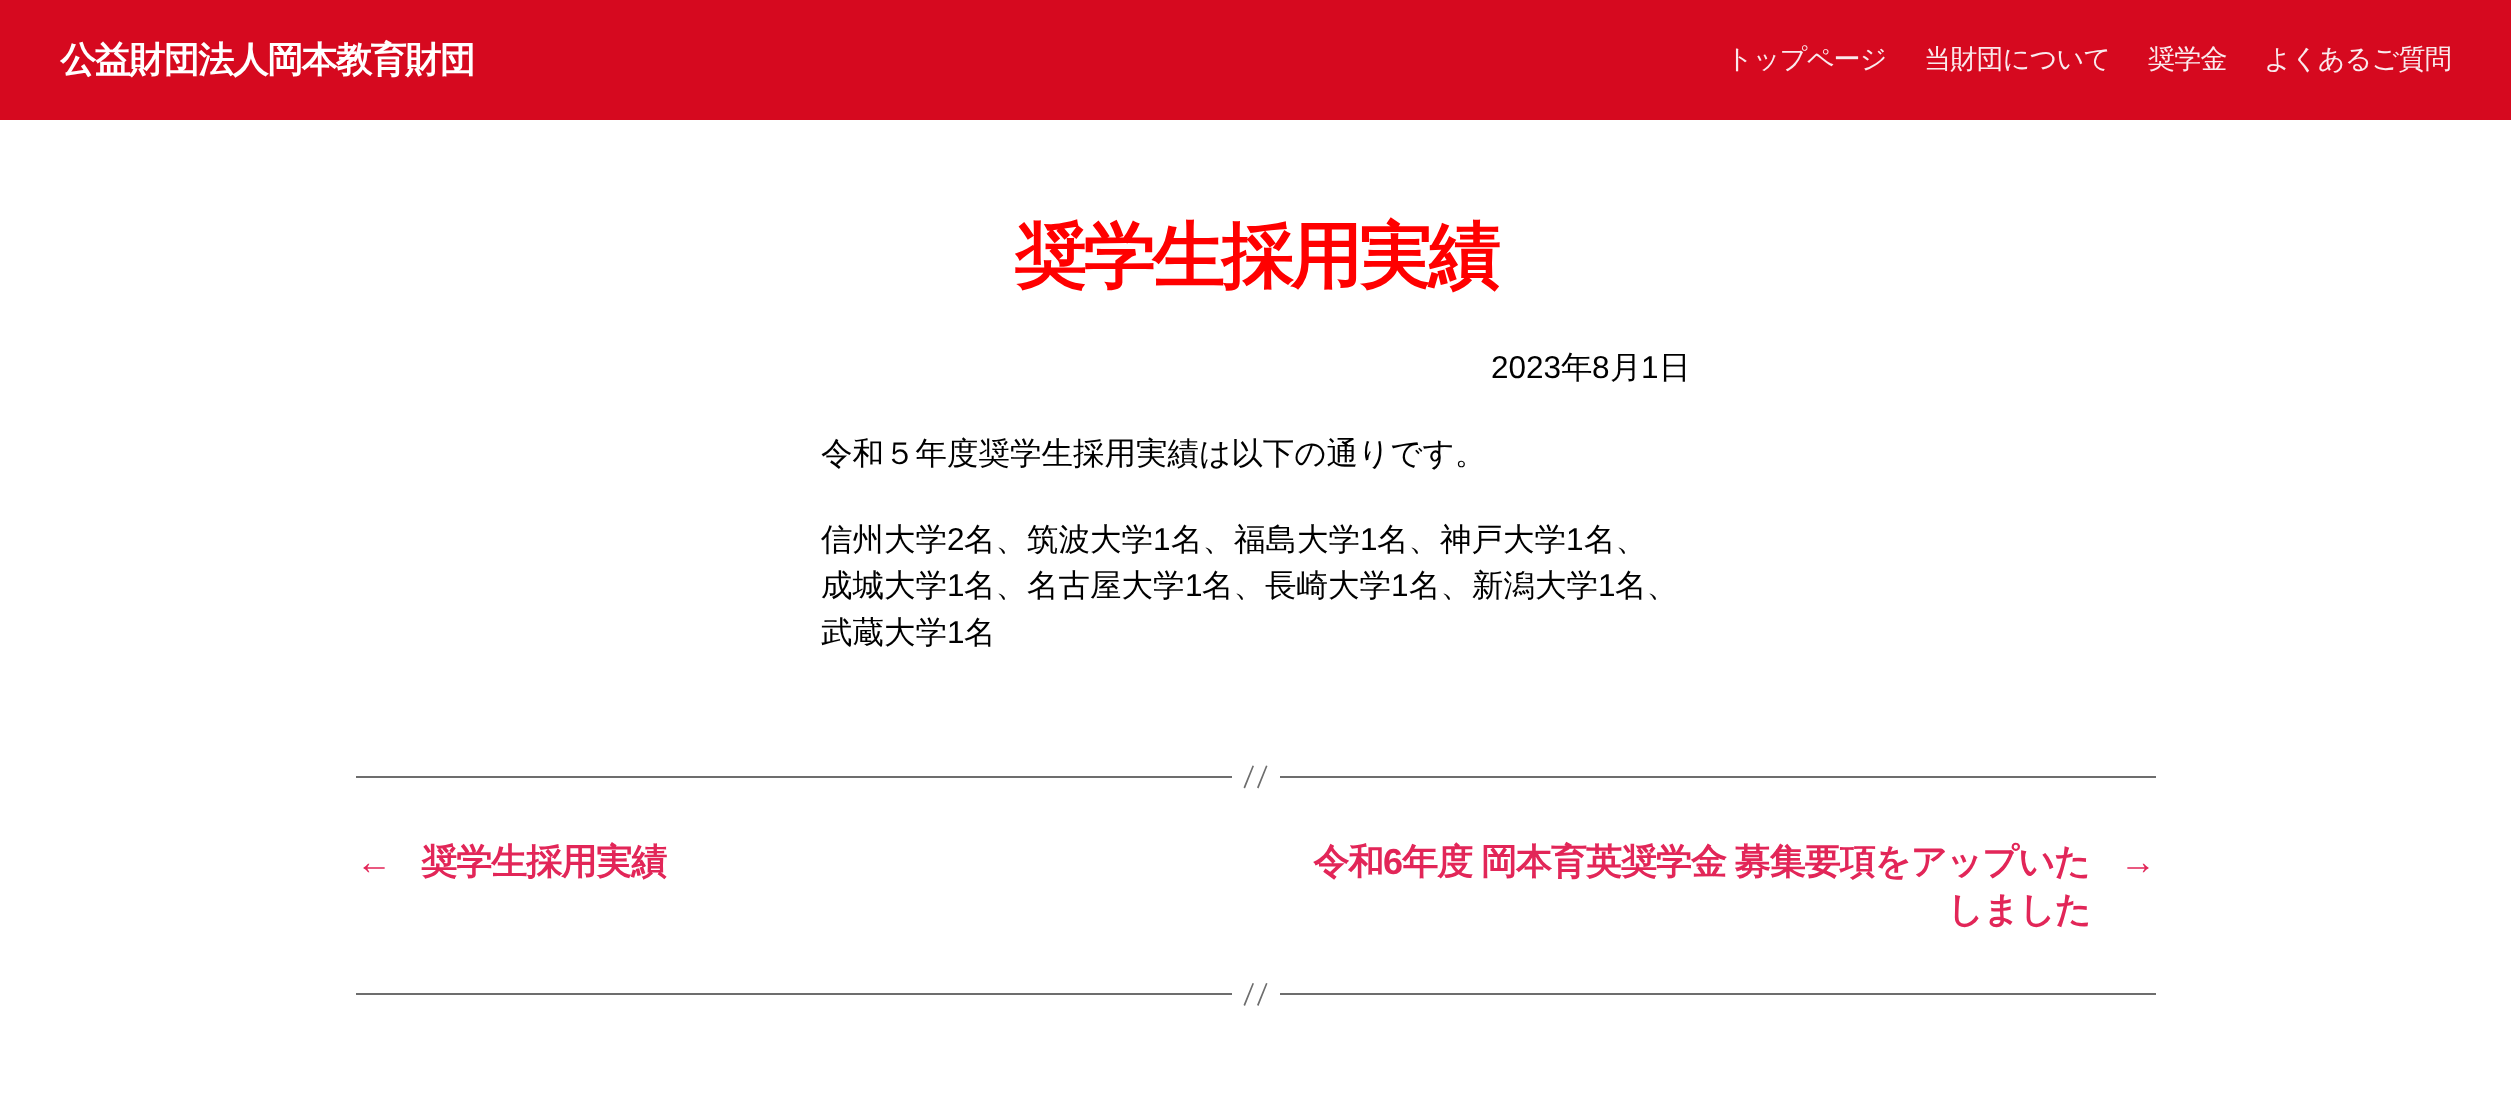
<svg xmlns="http://www.w3.org/2000/svg" width="2511" height="1112">
	<rect width="100%" height="100%" fill="#FFFFFF" />
	<rect x="0" y="0" width="2511" height="120" fill="#D6091F" />
	<text x="60" y="72" font-family="WenQuanYi Zen Hei" font-size="36" font-weight="700" letter-spacing="-1.5" fill="#FFFFFF">公益財団法人岡本教育財団</text>
	<g font-family="WenQuanYi Zen Hei" font-size="27" font-weight="500" letter-spacing="-0.75" fill="#FAEAED">
		<text x="1726" y="68">トップページ</text>
		<text x="1924" y="68">当財団について</text>
		<text x="2148" y="68">奨学金</text>
		<text x="2264" y="68">よくあるご質問</text>
	</g>
	<text x="1014" y="281" font-family="WenQuanYi Zen Hei" font-size="72" font-weight="700" letter-spacing="-3" fill="#FF0000">奨学生採用実績</text>
	<text x="1491" y="378" font-family="Liberation Sans" font-size="31.5" fill="#000000">2023</text>
	<text x="1561" y="378" font-family="WenQuanYi Zen Hei" font-size="31.5" font-weight="500" fill="#000000">年</text>
	<text x="1592" y="378" font-family="Liberation Sans" font-size="31.5" fill="#000000">8</text>
	<text x="1610" y="378" font-family="WenQuanYi Zen Hei" font-size="31.5" font-weight="500" fill="#000000">月</text>
	<text x="1641" y="378" font-family="Liberation Sans" font-size="31.5" fill="#000000">1</text>
	<g font-family="WenQuanYi Zen Hei" font-size="31.5" font-weight="500" fill="#000000">
		<text x="1659" y="378">日</text>
		<text x="821" y="464">令和５年度奨学生採用実績は以下の通りです。</text>
		<text x="821" y="550">信州大学</text>
	</g>
	<text x="947" y="550" font-family="Liberation Sans" font-size="31.5" fill="#000000">2</text>
	<text x="964" y="550" font-family="WenQuanYi Zen Hei" font-size="31.5" font-weight="500" fill="#000000">名、筑波大学</text>
	<text x="1153" y="550" font-family="Liberation Sans" font-size="31.5" fill="#000000">1</text>
	<text x="1171" y="550" font-family="WenQuanYi Zen Hei" font-size="31.5" font-weight="500" fill="#000000">名、福島大学</text>
	<text x="1360" y="550" font-family="Liberation Sans" font-size="31.5" fill="#000000">1</text>
	<text x="1377" y="550" font-family="WenQuanYi Zen Hei" font-size="31.5" font-weight="500" fill="#000000">名、神戸大学</text>
	<text x="1566" y="550" font-family="Liberation Sans" font-size="31.5" fill="#000000">1</text>
	<g font-family="WenQuanYi Zen Hei" font-size="31.5" font-weight="500" fill="#000000">
		<text x="1584" y="550">名、</text>
		<text x="821" y="596">成城大学</text>
	</g>
	<text x="947" y="596" font-family="Liberation Sans" font-size="31.5" fill="#000000">1</text>
	<text x="964" y="596" font-family="WenQuanYi Zen Hei" font-size="31.5" font-weight="500" fill="#000000">名、名古屋大学</text>
	<text x="1185" y="596" font-family="Liberation Sans" font-size="31.5" fill="#000000">1</text>
	<text x="1202" y="596" font-family="WenQuanYi Zen Hei" font-size="31.5" font-weight="500" fill="#000000">名、長崎大学</text>
	<text x="1391" y="596" font-family="Liberation Sans" font-size="31.5" fill="#000000">1</text>
	<text x="1409" y="596" font-family="WenQuanYi Zen Hei" font-size="31.5" font-weight="500" fill="#000000">名、新潟大学</text>
	<text x="1598" y="596" font-family="Liberation Sans" font-size="31.5" fill="#000000">1</text>
	<g font-family="WenQuanYi Zen Hei" font-size="31.5" font-weight="500" fill="#000000">
		<text x="1615" y="596">名、</text>
		<text x="821" y="643">武蔵大学</text>
	</g>
	<text x="947" y="643" font-family="Liberation Sans" font-size="31.5" fill="#000000">1</text>
	<text x="964" y="643" font-family="WenQuanYi Zen Hei" font-size="31.5" font-weight="500" fill="#000000">名</text>
	<rect x="1280" y="776" width="876" height="2" fill="#6D6D6D" />
	<rect x="356" y="776" width="876" height="2" fill="#6D6D6D" />
	<path d="M1252.5 765.5L1254 766L1245 788.5L1243.5 787.5ZM1266 765.5L1267.5 766L1258.5 788.5L1257 787.5Z" fill="#6D6D6D" />
	<text x="356" y="874" font-family="Liberation Sans" font-size="36" font-weight="700" letter-spacing="-1" fill="#E22658">←</text>
	<g font-family="WenQuanYi Zen Hei" font-size="36" font-weight="700" letter-spacing="-1" fill="#E22658">
		<text x="421" y="874">奨学生採用実績</text>
		<text x="1313" y="874">令和</text>
	</g>
	<text x="1383" y="874" font-family="Liberation Sans" font-size="36" font-weight="700" letter-spacing="-1" fill="#E22658">6</text>
	<g font-family="WenQuanYi Zen Hei" font-size="36" font-weight="700" letter-spacing="-1" fill="#E22658">
		<text x="1402" y="874" word-spacing="-1">年度 岡本育英奨学金 募集要項をアップいた</text>
		<text x="1947" y="922">しました</text>
	</g>
	<text x="2120" y="874" font-family="Liberation Sans" font-size="36" font-weight="700" letter-spacing="-1" fill="#E22658">→</text>
	<rect x="1280" y="993" width="876" height="2" fill="#6D6D6D" />
	<rect x="356" y="993" width="876" height="2" fill="#6D6D6D" />
	<path d="M1252.5 983L1254 983.5L1245 1006L1243.5 1005ZM1266 983L1267.5 983.5L1258.5 1006L1257 1005Z" fill="#6D6D6D" />
</svg>
